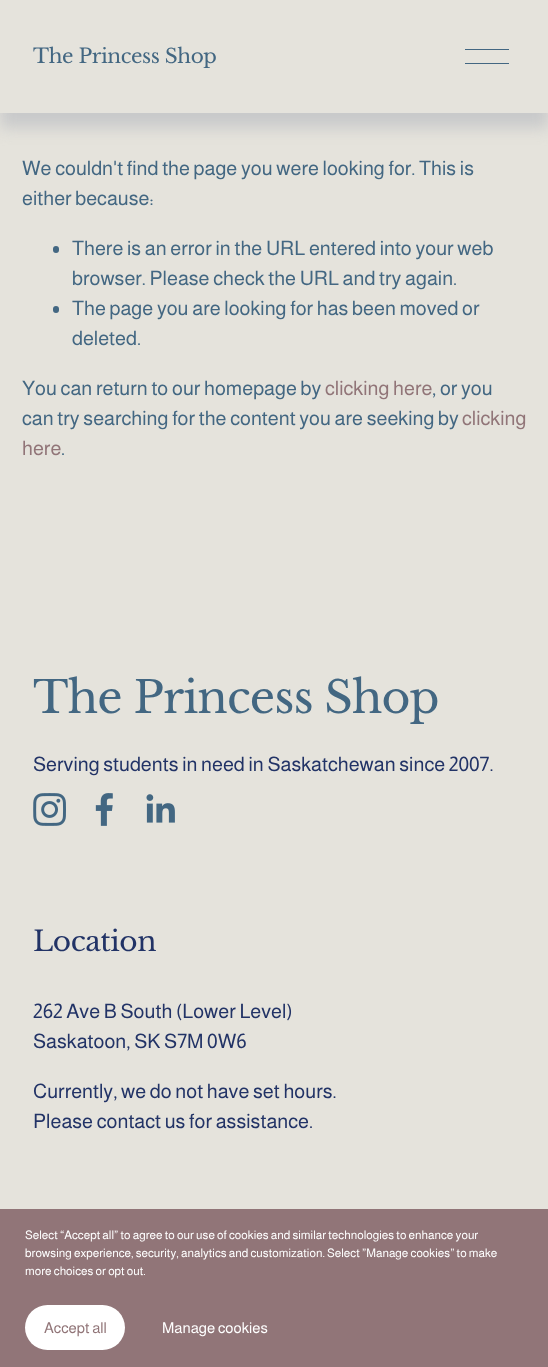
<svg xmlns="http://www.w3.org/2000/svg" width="548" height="1367">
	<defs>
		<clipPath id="clip1"><path d="M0 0H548V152H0ZM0 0H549V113H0Z" clip-rule="evenodd" /></clipPath>
	</defs>
	<rect width="100%" height="100%" fill="#E5E3DC" />
	<g clip-path="url(#clip1)">
		<rect x="0" y="15" width="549" height="113" fill="#C8C9CA" filter="blur(7.5px)" />
	</g>
	<text x="33" y="63" font-family="Libre Baskerville" font-size="20" letter-spacing="-0.4" fill="#436782">The Princess Shop</text>
	<rect x="465" y="49" width="44" height="1" fill="#436782" />
	<rect x="465" y="63" width="44" height="1" fill="#436782" />
	<g font-family="Almarai" font-size="20" fill="#436782">
		<text x="22" y="175">We couldn't find the page you were looking for. This is</text>
		<text x="22" y="205">either because:</text>
	</g>
	<rect x="53" y="246" width="6" height="7" rx="3" fill="#436782" />
	<g font-family="Almarai" font-size="20" fill="#436782">
		<text x="72" y="255">There is an error in the URL entered into your web</text>
		<text x="72" y="285">browser. Please check the URL and try again.</text>
	</g>
	<rect x="53" y="306" width="6" height="7" rx="3" fill="#436782" />
	<g font-family="Almarai" font-size="20" fill="#436782">
		<text x="72" y="315">The page you are looking for has been moved or</text>
		<text x="72" y="345">deleted.</text>
		<text x="22" y="395">You can return to our homepage by</text>
	</g>
	<text x="325" y="395" font-family="Almarai" font-size="20" fill="#917578">clicking here</text>
	<g font-family="Almarai" font-size="20" fill="#436782">
		<text x="432" y="395">, or you</text>
		<text x="22" y="425">can try searching for the content you are seeking by</text>
	</g>
	<g font-family="Almarai" font-size="20" fill="#917578">
		<text x="462" y="425">clicking</text>
		<text x="22" y="455">here</text>
	</g>
	<text x="61" y="455" font-family="Almarai" font-size="20" fill="#436782">.</text>
	<text x="33" y="713" font-family="Libre Baskerville" font-size="44.25" letter-spacing="-0.9" fill="#436782">The Princess Shop</text>
	<text x="33" y="771" font-family="Almarai" font-size="20" fill="#223366">Serving students in need in Saskatchewan since 2007.</text>
	<image x="33" y="793" width="33" height="33" href="assets/img1.png" />
	<image x="95" y="793" width="18" height="33" href="assets/img2.png" />
	<image x="146" y="794" width="29" height="29" href="assets/img3.png" />
	<text x="33" y="951" font-family="Libre Baskerville" font-size="28" letter-spacing="-0.5" fill="#223366">Location</text>
	<g font-family="Almarai" font-size="20" fill="#223366">
		<text x="33" y="1018">262 Ave B South (Lower Level)</text>
		<text x="33" y="1048">Saskatoon, SK S7M 0W6</text>
		<text x="33" y="1098">Currently, we do not have set hours.</text>
		<text x="33" y="1128">Please contact us for assistance.</text>
	</g>
	<rect x="0" y="1209" width="548" height="158" fill="#917578" />
	<g font-family="Almarai" font-size="11.9" fill="#FFFFFF">
		<text x="25" y="1239">Select “Accept all” to agree to our use of cookies and similar technologies to enhance your</text>
		<text x="25" y="1257">browsing experience, security, analytics and customization. Select ”Manage cookies” to make</text>
		<text x="25" y="1275">more choices or opt out.</text>
	</g>
	<rect x="25" y="1305" width="100" height="45" rx="22.5" fill="#FFFFFF" />
	<text x="44" y="1333" font-family="Almarai" font-size="15" fill="#917578">Accept all</text>
	<text x="162" y="1333" font-family="Almarai" font-size="15" fill="#FFFFFF">Manage cookies</text>
</svg>
